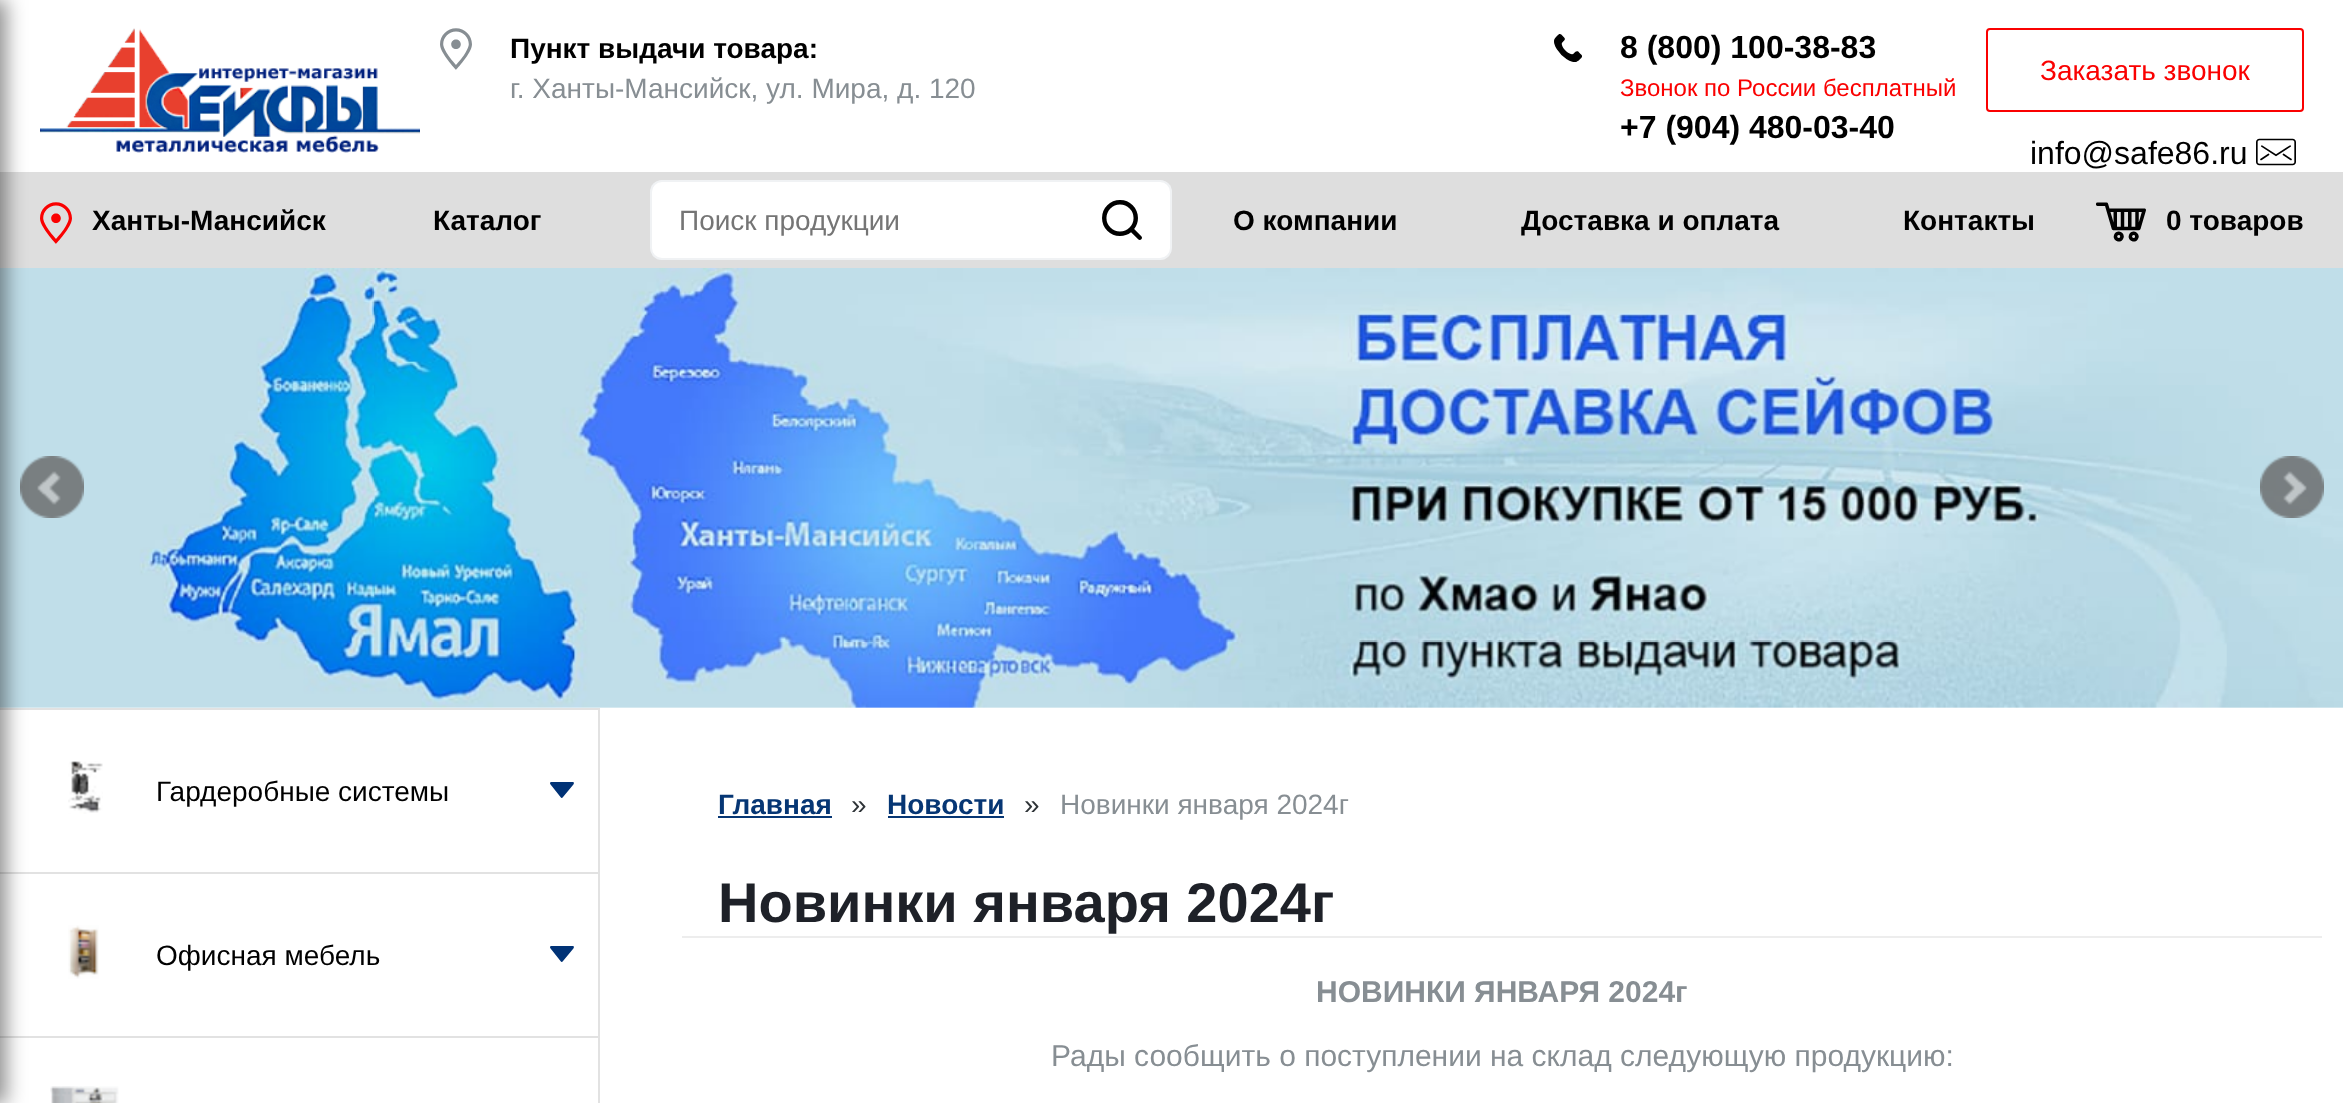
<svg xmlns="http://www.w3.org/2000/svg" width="2343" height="1103">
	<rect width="100%" height="100%" fill="#FFFFFF" />
	<rect x="0" y="172" width="2343" height="96" fill="#DEDEDE" />
	<image x="0" y="268" width="2343" height="440" href="assets/img8.png" />
	<image x="20" y="456" width="64" height="62" href="assets/img9.png" />
	<rect x="0" y="708" width="600" height="2" fill="#E2E2E2" />
	<rect x="0" y="872" width="598" height="2" fill="#E2E2E2" />
	<rect x="0" y="1036" width="598" height="2" fill="#E2E2E2" />
	<rect x="-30" y="0" width="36" height="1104" fill="#000000" fill-opacity="0.45" filter="blur(10px)" />
	<image x="40" y="28" width="380" height="125" href="assets/img1.png" />
	<image x="440" y="28" width="32" height="42" href="assets/img2.png" />
	<text x="510" y="58" font-family="Liberation Sans" font-size="28" font-weight="700" fill="#000000">Пункт выдачи товара:</text>
	<text x="510" y="98" font-family="Liberation Sans" font-size="28" fill="#878E93">г. Ханты-Мансийск, ул. Мира, д. 120</text>
	<image x="1554" y="34" width="28" height="28" href="assets/img3.png" />
	<text x="1620" y="58" font-family="Liberation Sans" font-size="32" font-weight="700" fill="#000000">8 (800) 100-38-83</text>
	<text x="1620" y="96" font-family="Liberation Sans" font-size="24" fill="#FA0101">Звонок по России бесплатный</text>
	<text x="1620" y="138" font-family="Liberation Sans" font-size="32" font-weight="700" fill="#000000">+7 (904) 480-03-40</text>
	<rect x="1987" y="29" width="316" height="82" rx="3" fill="none" stroke="#FA0101" stroke-width="2" />
	<text x="2040" y="80" font-family="Liberation Sans" font-size="28" fill="#FA0101">Заказать звонок</text>
	<text x="2030" y="164" font-family="Liberation Sans" font-size="32" fill="#000000">info@safe86.ru</text>
	<image x="2256" y="138" width="40" height="28" href="assets/img4.png" />
	<image x="40" y="202" width="32" height="42" href="assets/img5.png" />
	<g font-family="Liberation Sans" font-size="28" font-weight="700" fill="#000000">
		<text x="92" y="230">Ханты-Мансийск</text>
		<text x="433" y="230">Каталог</text>
	</g>
	<rect x="650" y="180" width="522" height="80" rx="12" fill="#FFFFFF" />
	<rect x="651" y="181" width="520" height="78" rx="11" fill="none" stroke="#B4BEC6" stroke-opacity="0.2" stroke-width="2" />
	<text x="679" y="230" font-family="Liberation Sans" font-size="28" fill="#757575">Поиск продукции</text>
	<image x="1102" y="200" width="40" height="40" href="assets/img6.png" />
	<g font-family="Liberation Sans" font-size="28" font-weight="700" fill="#000000">
		<text x="1233" y="230">О компании</text>
		<text x="1521" y="230">Доставка и оплата</text>
		<text x="1903" y="230">Контакты</text>
	</g>
	<image x="2096" y="202" width="50" height="40" href="assets/img7.png" />
	<text x="2166" y="230" font-family="Liberation Sans" font-size="28" font-weight="700" fill="#000000">0 товаров</text>
	<image x="2260" y="456" width="64" height="62" href="assets/img10.png" />
	<rect x="598" y="708" width="2" height="395" fill="#E2E2E2" />
	<image x="68" y="761" width="35" height="53" href="assets/img11.png" />
	<text x="156" y="801" font-family="Liberation Sans" font-size="28" fill="#000000">Гардеробные системы</text>
	<image x="550" y="782" width="24" height="16" href="assets/img12.png" />
	<image x="68" y="925" width="31" height="54" href="assets/img13.png" />
	<text x="156" y="965" font-family="Liberation Sans" font-size="28" fill="#000000">Офисная мебель</text>
	<image x="550" y="946" width="24" height="16" href="assets/img12.png" />
	<image x="50" y="1086" width="69" height="17" href="assets/img14.png" />
	<text x="718" y="814" font-family="Liberation Sans" font-size="28" font-weight="700" fill="#063674">Главная</text>
	<rect x="718" y="816" width="114" height="2" fill="#063674" />
	<text x="851" y="814" font-family="Liberation Sans" font-size="28" fill="#2E3337">»</text>
	<text x="887" y="814" font-family="Liberation Sans" font-size="28" font-weight="700" fill="#063674">Новости</text>
	<rect x="888" y="816" width="116" height="2" fill="#063674" />
	<text x="1024" y="814" font-family="Liberation Sans" font-size="28" fill="#2E3337">»</text>
	<text x="1060" y="814" font-family="Liberation Sans" font-size="28" fill="#878E93">Новинки января 2024г</text>
	<rect x="682" y="936" width="1640" height="2" fill="#EDEDED" />
	<text x="718" y="922" font-family="Liberation Sans" font-size="56" font-weight="700" fill="#1E2128">Новинки января 2024г</text>
	<text x="1316" y="1002" font-family="Liberation Sans" font-size="30" font-weight="700" fill="#878E93">НОВИНКИ ЯНВАРЯ 2024г</text>
	<text x="1051" y="1066" font-family="Liberation Sans" font-size="30" fill="#878E93">Рады сообщить о поступлении на склад следующую продукцию:</text>
</svg>
